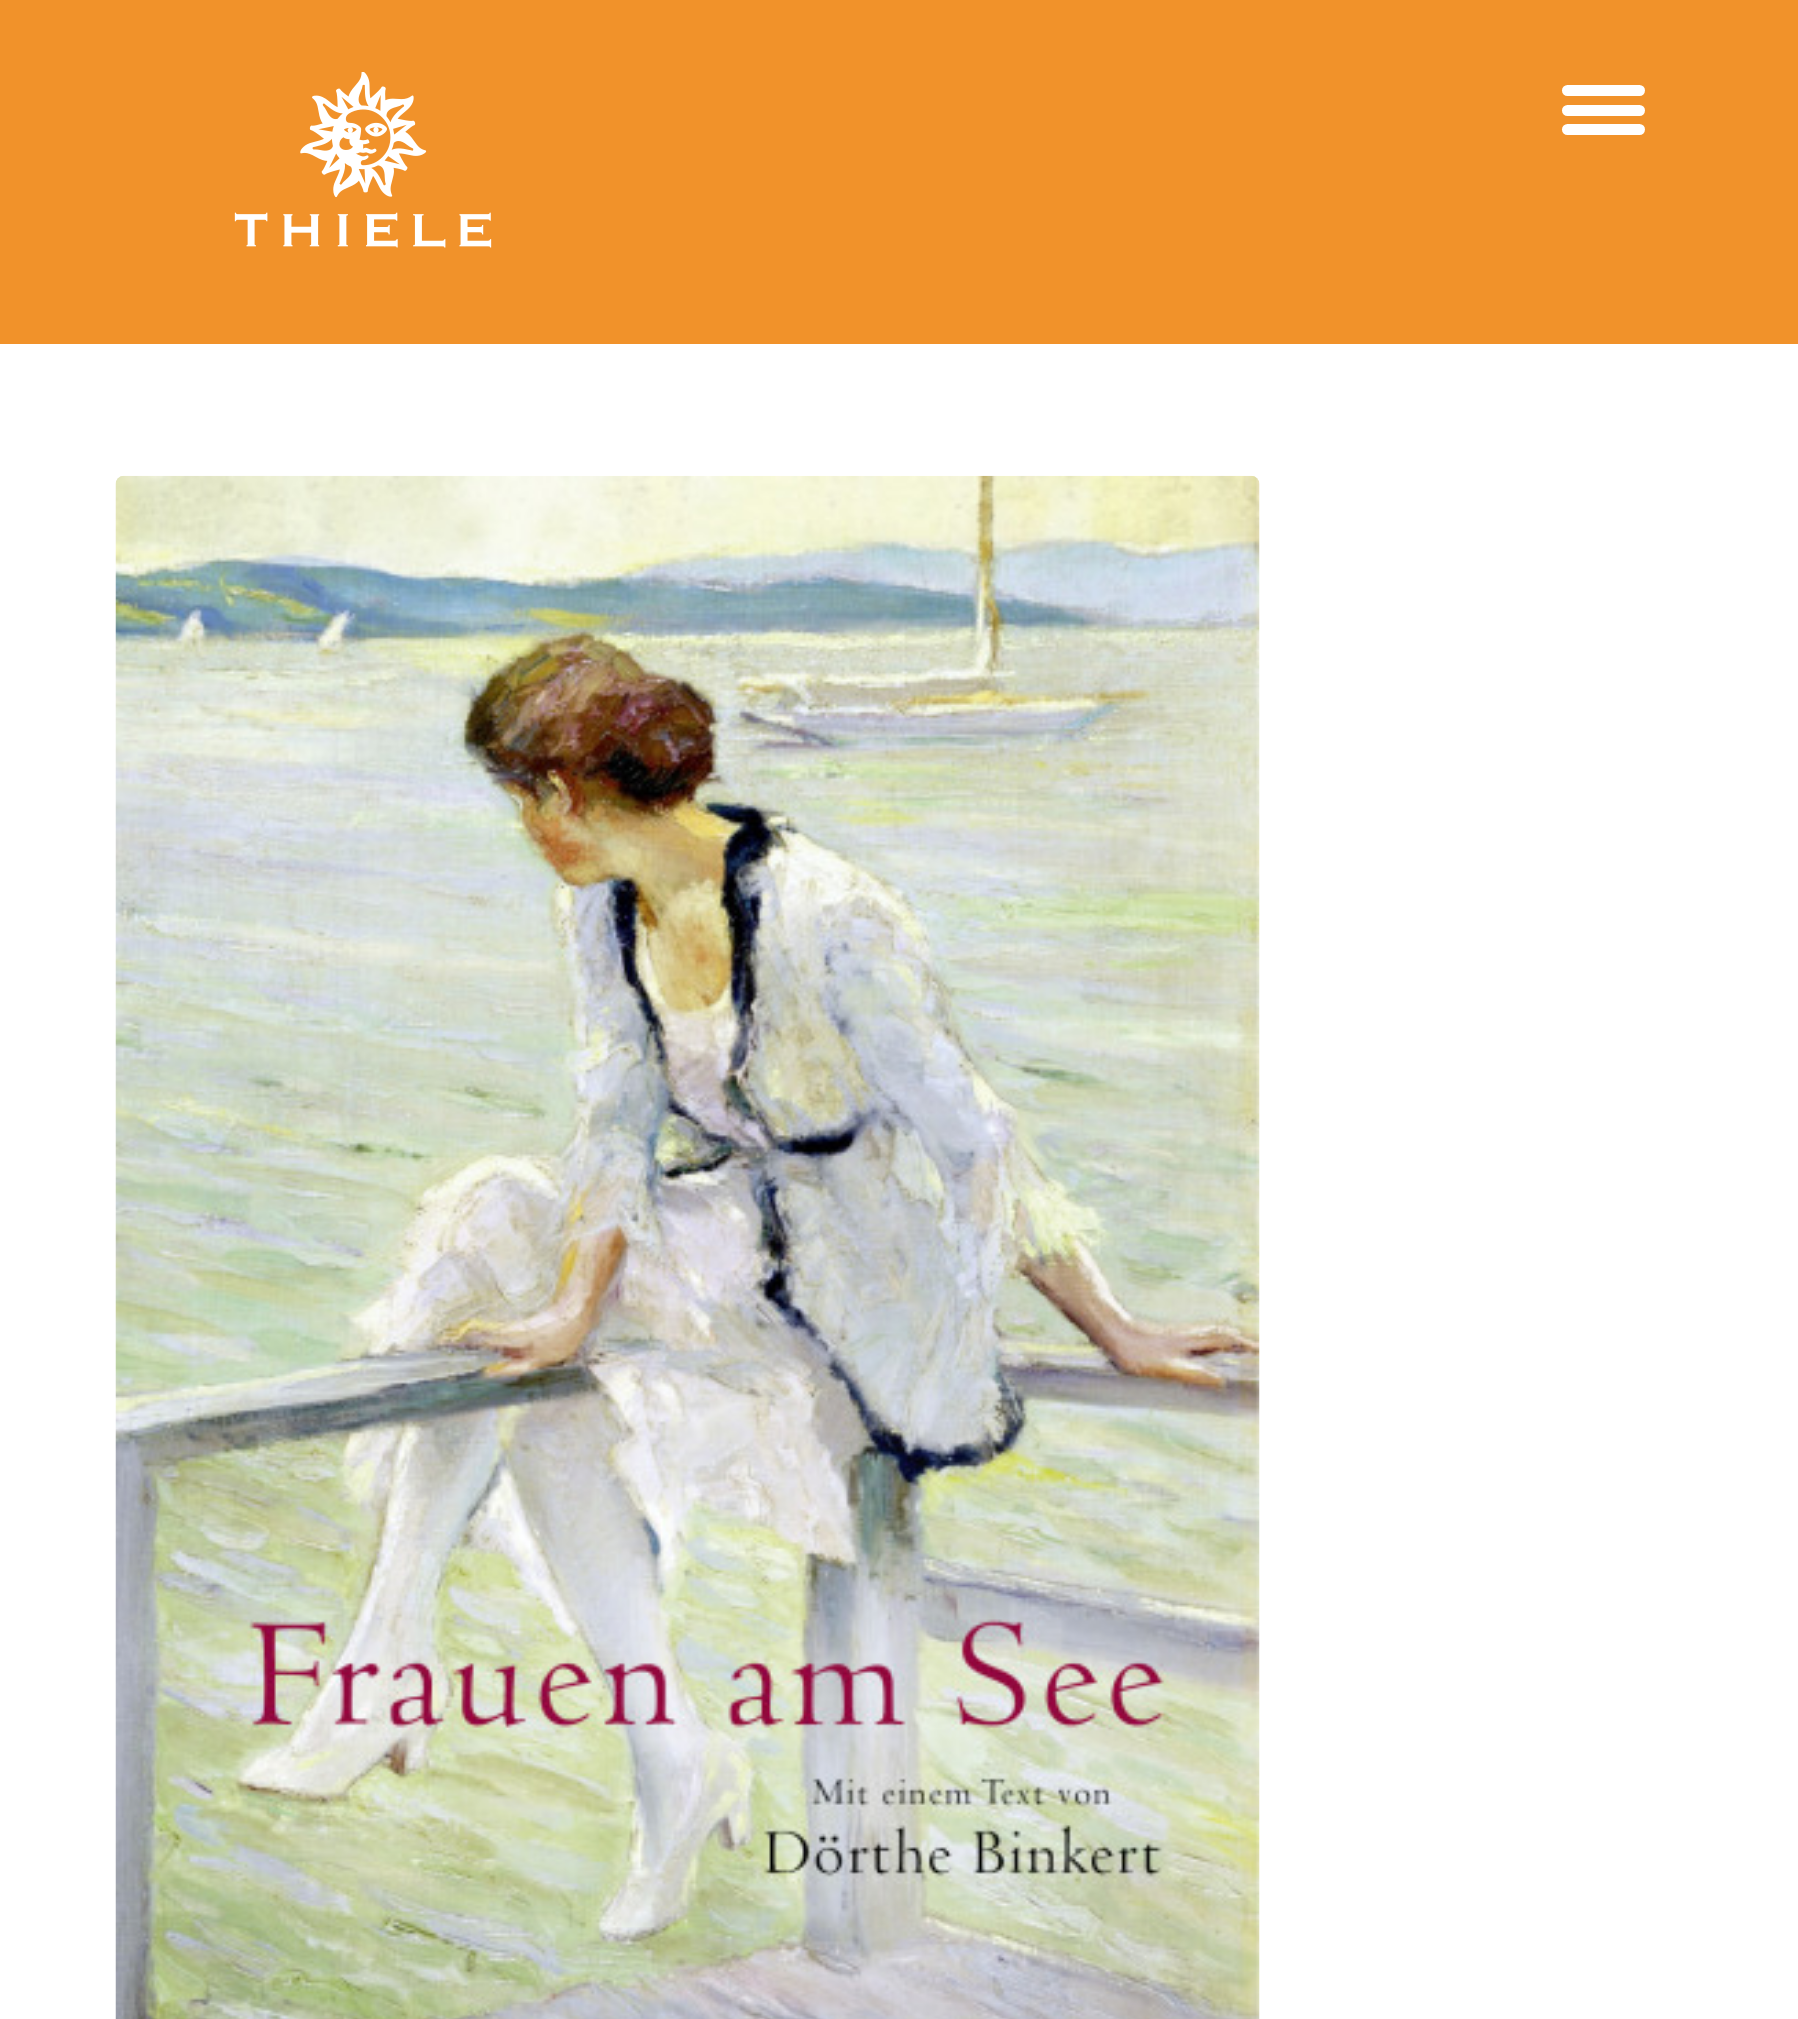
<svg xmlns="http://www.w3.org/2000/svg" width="1798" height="2019">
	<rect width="100%" height="100%" fill="#FFFFFF" />
	<rect x="0" y="0" width="1798" height="344" fill="#F1922A" />
	<image x="234" y="72" width="258" height="176" href="assets/img1.png" />
	<rect x="1562" y="85" width="83" height="11" rx="5.5" fill="#FFFFFF" />
	<rect x="1562" y="105" width="83" height="11" rx="5.5" fill="#FFFFFF" />
	<rect x="1562" y="124" width="83" height="11" rx="5.5" fill="#FFFFFF" />
	<image x="115" y="475" width="1145" height="1544" href="assets/img2.png" />
</svg>
